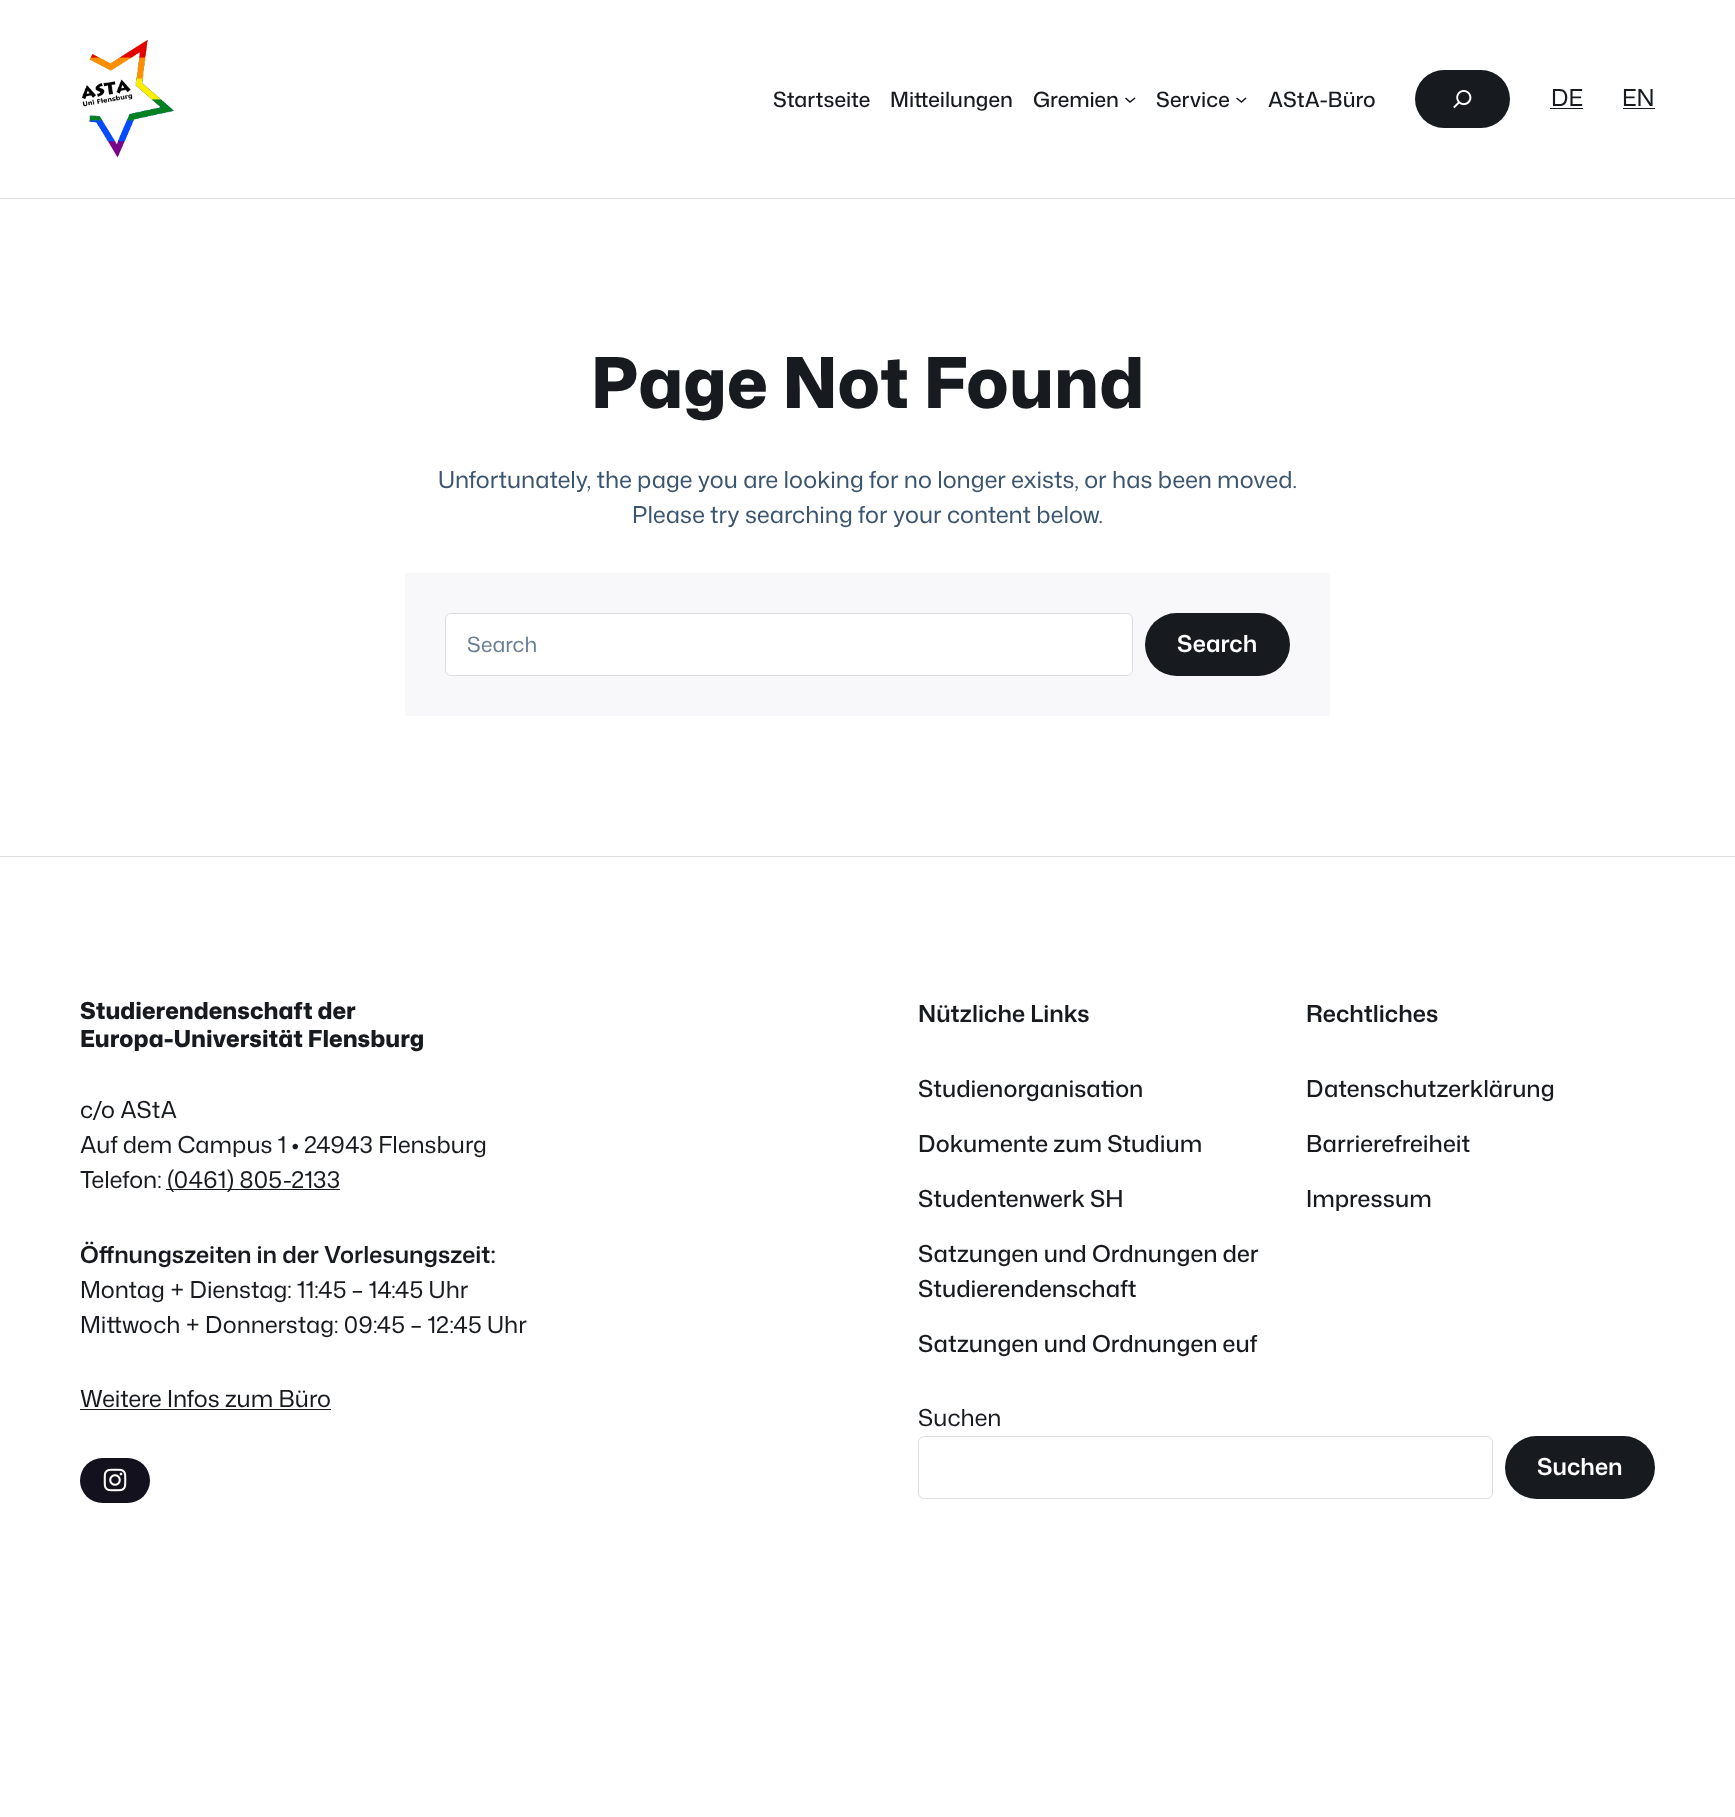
<svg xmlns="http://www.w3.org/2000/svg" width="1735" height="1817">
	<rect width="100%" height="100%" fill="#FFFFFF" />
	<rect x="0" y="198" width="1735" height="1" fill="#DADEE3" />
	<image x="81" y="40" width="93" height="118" href="assets/img1.png" />
	<g font-family="Mona Sans" font-size="21" font-weight="500" fill="#171A1F">
		<text x="773" y="107">Startseite</text>
		<text x="890" y="107">Mitteilungen</text>
		<text x="1033" y="107">Gremien</text>
	</g>
	<path d="M1125.5 98L1130 102L1135 98" fill="none" stroke="#171A1F" stroke-width="1.6" />
	<text x="1156" y="107" font-family="Mona Sans" font-size="21" font-weight="500" fill="#171A1F">Service</text>
	<path d="M1236.5 98L1241.5 102L1246 98" fill="none" stroke="#171A1F" stroke-width="1.6" />
	<text x="1268" y="107" font-family="Mona Sans" font-size="21" font-weight="500" fill="#171A1F">AStA-Büro</text>
	<rect x="1415" y="70" width="95" height="58" rx="29" fill="#171A1F" />
	<image x="1453" y="90" width="19" height="19" href="assets/img2.png" />
	<text x="1551" y="106" font-family="Mona Sans" font-size="23.3" fill="#171A1F">DE</text>
	<rect x="1550" y="108" width="33" height="1" fill="#171A1F" />
	<text x="1622" y="106" font-family="Mona Sans" font-size="23.3" fill="#171A1F">EN</text>
	<rect x="1623" y="108" width="32" height="1" fill="#171A1F" />
	<text x="591" y="408" font-family="Mona Sans" font-size="70" font-weight="800" fill="#171A1F">Page Not Found</text>
	<g font-family="Mona Sans" font-size="23.3" fill="#3B5570">
		<text x="438" y="488">Unfortunately, the page you are looking for no longer exists, or has been moved.</text>
		<text x="632" y="523">Please try searching for your content below.</text>
	</g>
	<rect x="405" y="573" width="925" height="143" fill="#F8F7F9" />
	<rect x="445.5" y="613.5" width="687" height="62" rx="5.5" fill="#FFFFFF" stroke="#DADEE3" />
	<text x="467" y="652" font-family="Mona Sans" font-size="21" fill="#6C8094">Search</text>
	<rect x="1145" y="613" width="145" height="63" rx="31.5" fill="#171A1F" />
	<text x="1177" y="652" font-family="Mona Sans" font-size="23.3" font-weight="600" fill="#FFFFFF">Search</text>
	<rect x="0" y="856" width="1735" height="1" fill="#DADEE3" />
	<g font-family="Mona Sans" font-size="23.3" font-weight="800" fill="#171A1F">
		<text x="80" y="1019">Studierendenschaft der</text>
		<text x="80" y="1047">Europa-Universität Flensburg</text>
	</g>
	<g font-family="Mona Sans" font-size="23.3" fill="#171A1F">
		<text x="80" y="1118">c/o AStA</text>
		<text x="80" y="1153">Auf dem Campus 1 • 24943 Flensburg</text>
		<text x="80" y="1188">Telefon:</text>
	</g>
	<rect x="166" y="1189" width="174" height="1" fill="#171A1F" />
	<text x="167" y="1188" font-family="Mona Sans" font-size="23.3" fill="#171A1F">(0461) 805-2133</text>
	<text x="80" y="1263" font-family="Mona Sans" font-size="23.3" font-weight="600" fill="#171A1F">Öffnungszeiten in der Vorlesungszeit:</text>
	<g font-family="Mona Sans" font-size="23.3" fill="#171A1F">
		<text x="80" y="1298">Montag + Dienstag: 11:45 – 14:45 Uhr</text>
		<text x="80" y="1333">Mittwoch + Donnerstag: 09:45 – 12:45 Uhr</text>
		<text x="80" y="1407">Weitere Infos zum Büro</text>
	</g>
	<rect x="80" y="1409" width="251" height="1" fill="#171A1F" />
	<rect x="80" y="1458" width="70" height="45" rx="22.5" fill="#14111F" />
	<image x="103" y="1468" width="24" height="24" href="assets/img3.png" />
	<text x="918" y="1022" font-family="Mona Sans" font-size="23.3" font-weight="600" fill="#171A1F">Nützliche Links</text>
	<g font-family="Mona Sans" font-size="23.3" font-weight="500" fill="#171A1F">
		<text x="918" y="1097">Studienorganisation</text>
		<text x="918" y="1152">Dokumente zum Studium</text>
		<text x="918" y="1207">Studentenwerk SH</text>
		<text x="918" y="1262">Satzungen und Ordnungen der</text>
		<text x="918" y="1297">Studierendenschaft</text>
		<text x="918" y="1352">Satzungen und Ordnungen euf</text>
	</g>
	<text x="1306" y="1022" font-family="Mona Sans" font-size="23.3" font-weight="600" fill="#171A1F">Rechtliches</text>
	<g font-family="Mona Sans" font-size="23.3" font-weight="500" fill="#171A1F">
		<text x="1306" y="1097">Datenschutzerklärung</text>
		<text x="1306" y="1152">Barrierefreiheit</text>
		<text x="1306" y="1207">Impressum</text>
	</g>
	<text x="918" y="1426" font-family="Mona Sans" font-size="23.3" fill="#171A1F">Suchen</text>
	<rect x="918.5" y="1436.5" width="574" height="62" rx="5.5" fill="none" stroke="#DADEE3" />
	<rect x="1505" y="1436" width="150" height="63" rx="31.5" fill="#171A1F" />
	<text x="1537" y="1475" font-family="Mona Sans" font-size="23.3" font-weight="600" fill="#FFFFFF">Suchen</text>
</svg>
